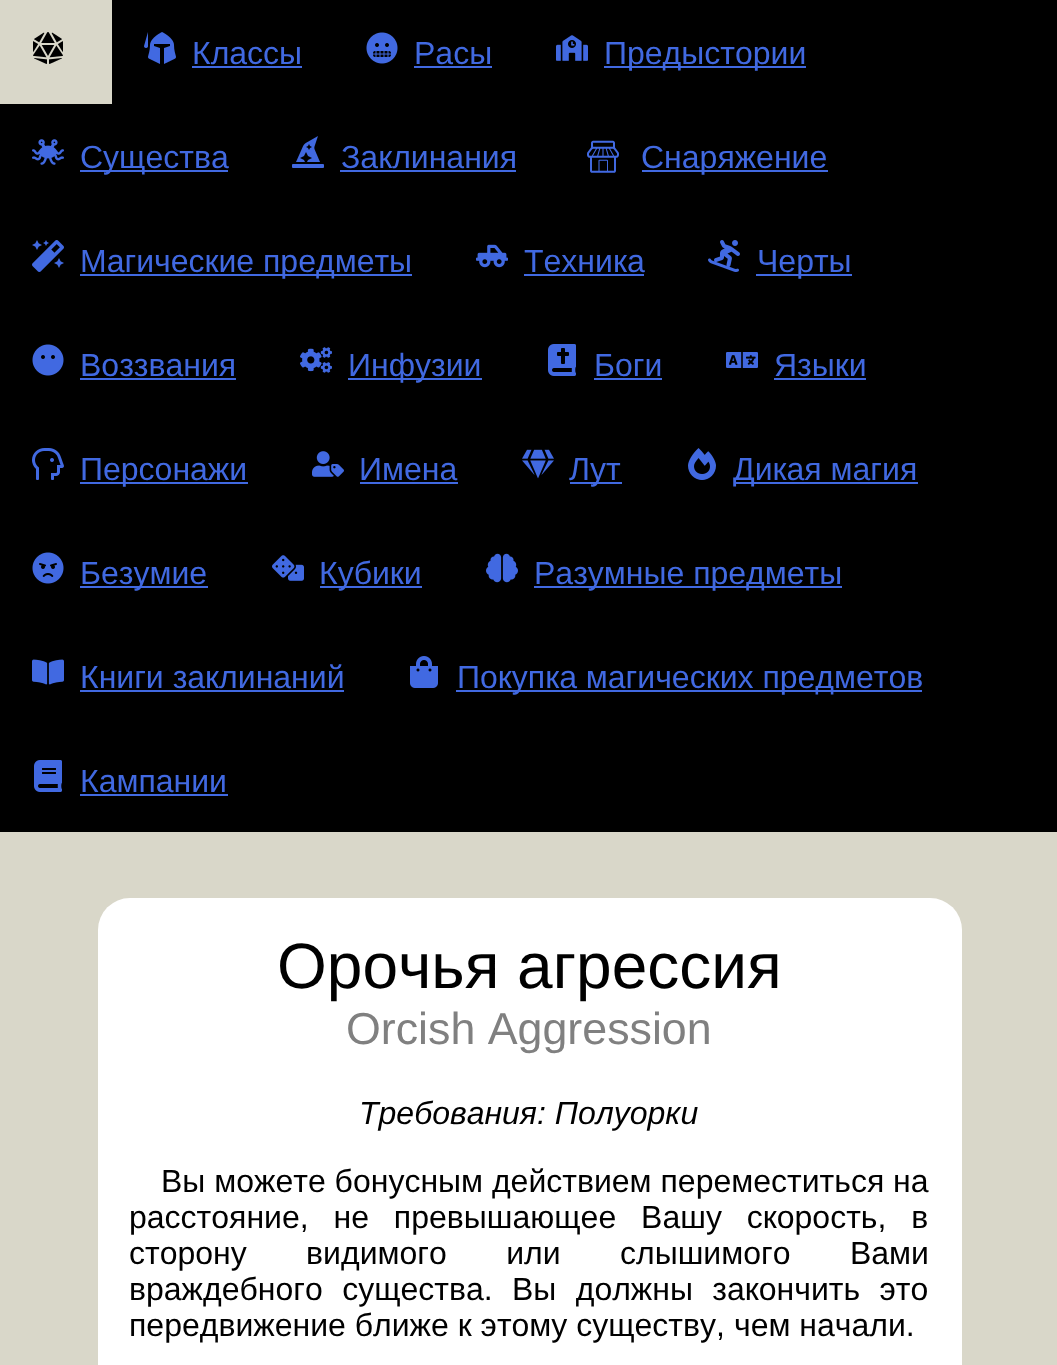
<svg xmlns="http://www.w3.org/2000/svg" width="1057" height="1365">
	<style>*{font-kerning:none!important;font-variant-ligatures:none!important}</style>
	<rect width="100%" height="100%" fill="#D9D7C9" />
	<rect x="0" y="0" width="1057" height="832" fill="#000000" />
	<rect x="0" y="0" width="112" height="104" fill="#D9D7C9" />
	<image x="33" y="32" width="30" height="32" href="assets/img1.png" />
	<image x="144" y="32" width="32" height="32" href="assets/img2.png" />
	<text x="192" y="64" font-family="Liberation Sans" font-size="32" fill="#4169E1">Классы</text>
	<rect x="192" y="66" width="110" height="2" fill="#4169E1" />
	<image x="366" y="32" width="32" height="32" href="assets/img3.png" />
	<text x="414" y="64" font-family="Liberation Sans" font-size="32" fill="#4169E1">Расы</text>
	<rect x="414" y="66" width="78" height="2" fill="#4169E1" />
	<image x="556" y="35" width="32" height="26" href="assets/img4.png" />
	<rect x="604" y="66" width="202" height="2" fill="#4169E1" />
	<text x="604" y="64" font-family="Liberation Sans" font-size="32" fill="#4169E1">Предыстории</text>
	<image x="32" y="139" width="32" height="26" href="assets/img5.png" />
	<rect x="80" y="170" width="148" height="2" fill="#4169E1" />
	<text x="80" y="168" font-family="Liberation Sans" font-size="32" fill="#4169E1">Существа</text>
	<image x="292" y="136" width="32" height="32" href="assets/img6.png" />
	<text x="341" y="168" font-family="Liberation Sans" font-size="32" fill="#4169E1">Заклинания</text>
	<rect x="340" y="170" width="176" height="2" fill="#4169E1" />
	<text x="587" y="168" font-family="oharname" font-size="32" fill="#4169E1">🏘</text>
	<rect x="642" y="170" width="186" height="2" fill="#4169E1" />
	<text x="641" y="168" font-family="Liberation Sans" font-size="32" fill="#4169E1">Снаряжение</text>
	<image x="32" y="240" width="32" height="32" href="assets/img7.png" />
	<rect x="80" y="274" width="332" height="2" fill="#4169E1" />
	<text x="80" y="272" font-family="Liberation Sans" font-size="32" fill="#4169E1">Магические предметы</text>
	<image x="476" y="244" width="32" height="24" href="assets/img8.png" />
	<text x="524" y="272" font-family="Liberation Sans" font-size="32" fill="#4169E1">Техника</text>
	<rect x="524" y="274" width="120" height="2" fill="#4169E1" />
	<image x="708" y="240" width="32" height="32" href="assets/img9.png" />
	<rect x="756" y="274" width="96" height="2" fill="#4169E1" />
	<text x="757" y="272" font-family="Liberation Sans" font-size="32" fill="#4169E1">Черты</text>
	<image x="32" y="344" width="32" height="32" href="assets/img10.png" />
	<text x="80" y="376" font-family="Liberation Sans" font-size="32" fill="#4169E1">Воззвания</text>
	<rect x="80" y="378" width="156" height="2" fill="#4169E1" />
	<image x="300" y="347" width="32" height="26" href="assets/img11.png" />
	<rect x="348" y="378" width="134" height="2" fill="#4169E1" />
	<text x="348" y="376" font-family="Liberation Sans" font-size="32" fill="#4169E1">Инфузии</text>
	<image x="548" y="344" width="28" height="32" href="assets/img12.png" />
	<text x="594" y="376" font-family="Liberation Sans" font-size="32" fill="#4169E1">Боги</text>
	<rect x="594" y="378" width="68" height="2" fill="#4169E1" />
	<image x="726" y="352" width="32" height="16" href="assets/img13.png" />
	<text x="774" y="376" font-family="Liberation Sans" font-size="32" fill="#4169E1">Языки</text>
	<rect x="774" y="378" width="92" height="2" fill="#4169E1" />
	<image x="32" y="448" width="32" height="32" href="assets/img14.png" />
	<rect x="80" y="482" width="168" height="2" fill="#4169E1" />
	<text x="80" y="480" font-family="Liberation Sans" font-size="32" fill="#4169E1">Персонажи</text>
	<image x="312" y="451" width="32" height="26" href="assets/img15.png" />
	<text x="359" y="480" font-family="Liberation Sans" font-size="32" fill="#4169E1">Имена</text>
	<rect x="360" y="482" width="98" height="2" fill="#4169E1" />
	<image x="522" y="449" width="32" height="30" href="assets/img16.png" />
	<rect x="570" y="482" width="52" height="2" fill="#4169E1" />
	<text x="569" y="480" font-family="Liberation Sans" font-size="32" fill="#4169E1">Лут</text>
	<image x="688" y="448" width="28" height="32" href="assets/img17.png" />
	<rect x="734" y="482" width="184" height="2" fill="#4169E1" />
	<text x="733" y="480" font-family="Liberation Sans" font-size="32" fill="#4169E1">Дикая магия</text>
	<image x="32" y="552" width="32" height="32" href="assets/img18.png" />
	<rect x="80" y="586" width="128" height="2" fill="#4169E1" />
	<text x="80" y="584" font-family="Liberation Sans" font-size="32" fill="#4169E1">Безумие</text>
	<image x="272" y="555" width="32" height="26" href="assets/img19.png" />
	<rect x="320" y="586" width="102" height="2" fill="#4169E1" />
	<text x="319" y="584" font-family="Liberation Sans" font-size="32" fill="#4169E1">Кубики</text>
	<image x="486" y="553" width="32" height="30" href="assets/img20.png" />
	<rect x="534" y="586" width="308" height="2" fill="#4169E1" />
	<text x="534" y="584" font-family="Liberation Sans" font-size="32" fill="#4169E1">Разумные предметы</text>
	<image x="32" y="659" width="32" height="26" href="assets/img21.png" />
	<text x="80" y="688" font-family="Liberation Sans" font-size="32" fill="#4169E1">Книги заклинаний</text>
	<rect x="80" y="690" width="264" height="2" fill="#4169E1" />
	<image x="410" y="656" width="28" height="32" href="assets/img22.png" />
	<rect x="456" y="690" width="466" height="2" fill="#4169E1" />
	<text x="457" y="688" font-family="Liberation Sans" font-size="32" fill="#4169E1">Покупка магических предметов</text>
	<image x="34" y="760" width="28" height="32" href="assets/img23.png" />
	<text x="80" y="792" font-family="Liberation Sans" font-size="32" fill="#4169E1">Кампании</text>
	<rect x="80" y="794" width="148" height="2" fill="#4169E1" />
	<rect x="98" y="898" width="864" height="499" rx="32" fill="#FFFFFF" />
	<text x="277" y="988" font-family="Liberation Sans" font-size="64" fill="#000000">Орочья агрессия</text>
	<text x="346" y="1044" font-family="Liberation Sans" font-size="44.75" fill="#808080">Orcish Aggression</text>
	<text x="359" y="1124" font-family="Liberation Sans" font-size="32" font-style="italic" fill="#000000">Требования: Полуорки</text>
	<g font-family="Liberation Sans" font-size="32" fill="#000000">
		<text x="161" y="1192">Вы можете бонусным действием переместиться на</text>
		<text x="129" y="1228" word-spacing="16">расстояние, не превышающее Вашу скорость, в</text>
		<text x="129" y="1264" word-spacing="50.5">сторону видимого или слышимого Вами</text>
		<text x="129" y="1300" word-spacing="10.5">враждебного существа. Вы должны закончить это</text>
		<text x="129" y="1336">передвижение ближе к этому существу,</text>
		<text x="734" y="1336">чем начали.</text>
	</g>
</svg>
